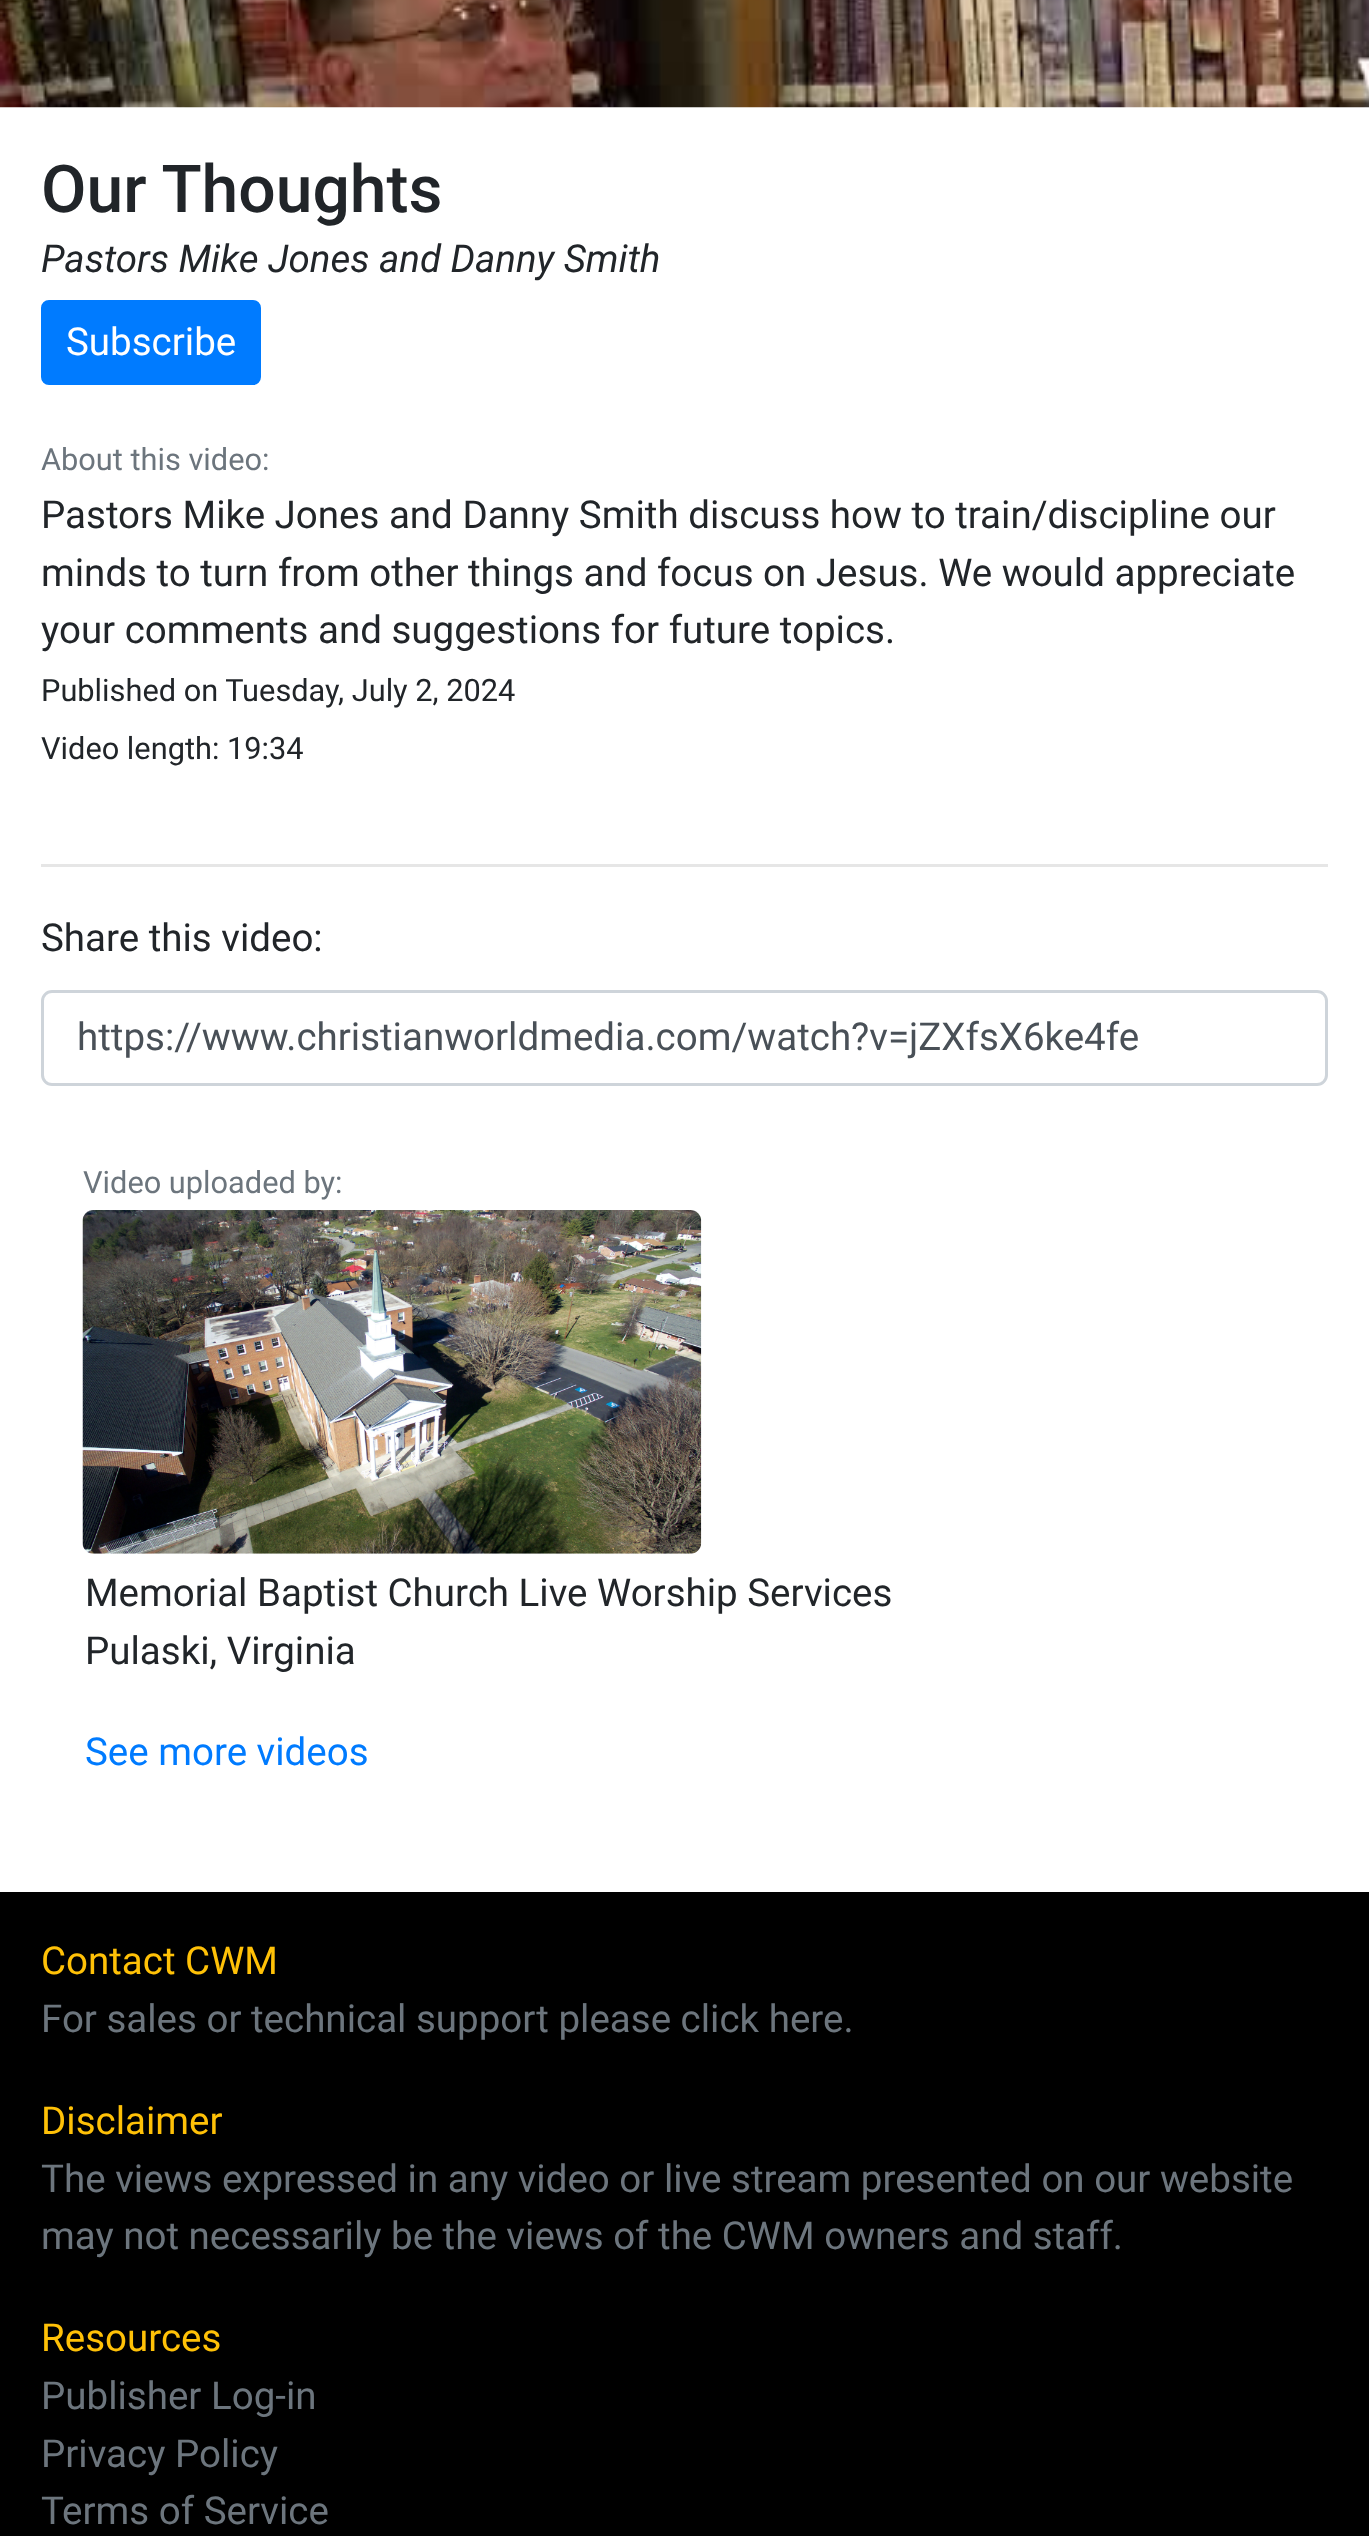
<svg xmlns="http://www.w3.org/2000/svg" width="1369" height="2536">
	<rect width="100%" height="100%" fill="#FFFFFF" />
	<image x="0" y="0" width="1369" height="108" href="assets/img1.png" />
	<text x="41" y="212" font-family="Roboto" font-size="66" font-weight="500" fill="#212529">Our Thoughts</text>
	<text x="41" y="272" font-family="Roboto" font-size="38.5" font-style="italic" fill="#212529">Pastors Mike Jones and Danny Smith</text>
	<rect x="42.5" y="301.5" width="217" height="82" rx="6.5" fill="#007BFF" stroke="#007BFF" stroke-width="3" />
	<text x="66" y="355" font-family="Roboto" font-size="38.5" fill="#FFFFFF">Subscribe</text>
	<text x="41" y="470" font-family="Roboto" font-size="30.75" fill="#6C757D">About this video:</text>
	<g font-family="Roboto" font-size="38.5" fill="#212529">
		<text x="41" y="528">Pastors Mike Jones and Danny Smith discuss how to train/discipline our</text>
		<text x="41" y="586">minds to turn from other things and focus on Jesus. We would appreciate</text>
		<text x="41" y="643">your comments and suggestions for future topics.</text>
	</g>
	<g font-family="Roboto" font-size="30.75" fill="#212529">
		<text x="41" y="701">Published on Tuesday, July 2, 2024</text>
		<text x="41" y="759">Video length: 19:34</text>
	</g>
	<rect x="41" y="864" width="1287" height="3" fill="#E6E6E6" />
	<text x="41" y="951" font-family="Roboto" font-size="38.5" fill="#212529">Share this video:</text>
	<rect x="42.5" y="991.5" width="1284" height="93" rx="9.5" fill="none" stroke="#CED4DA" stroke-width="3" />
	<text x="77" y="1050" font-family="Roboto" font-size="38.5" fill="#495057">https://www.christianworldmedia.com/watch?v=jZXfsX6ke4fe</text>
	<text x="83" y="1193" font-family="Roboto" font-size="30.75" fill="#6C757D">Video uploaded by:</text>
	<image x="82" y="1210" width="620" height="344" href="assets/img2.png" />
	<g font-family="Roboto" font-size="38.5" fill="#212529">
		<text x="85" y="1606">Memorial Baptist Church Live Worship Services</text>
		<text x="85" y="1664">Pulaski, Virginia</text>
	</g>
	<text x="85" y="1765" font-family="Roboto" font-size="38.5" fill="#007BFF">See more videos</text>
	<rect x="0" y="1892" width="1369" height="644" fill="#000000" />
	<text x="41" y="1974" font-family="Roboto" font-size="38.5" fill="#FFC107">Contact CWM</text>
	<text x="41" y="2032" font-family="Roboto" font-size="38.5" fill="#6C757D">For sales or technical support please click here.</text>
	<text x="41" y="2134" font-family="Roboto" font-size="38.5" fill="#FFC107">Disclaimer</text>
	<g font-family="Roboto" font-size="38.5" fill="#6C757D">
		<text x="41" y="2192">The views expressed in any video or live stream presented on our website</text>
		<text x="41" y="2249">may not necessarily be the views of the CWM owners and staff.</text>
	</g>
	<text x="41" y="2351" font-family="Roboto" font-size="38.5" fill="#FFC107">Resources</text>
	<g font-family="Roboto" font-size="38.5" fill="#6C757D">
		<text x="41" y="2409">Publisher Log-in</text>
		<text x="41" y="2467">Privacy Policy</text>
		<text x="41" y="2524">Terms of Service</text>
	</g>
</svg>
